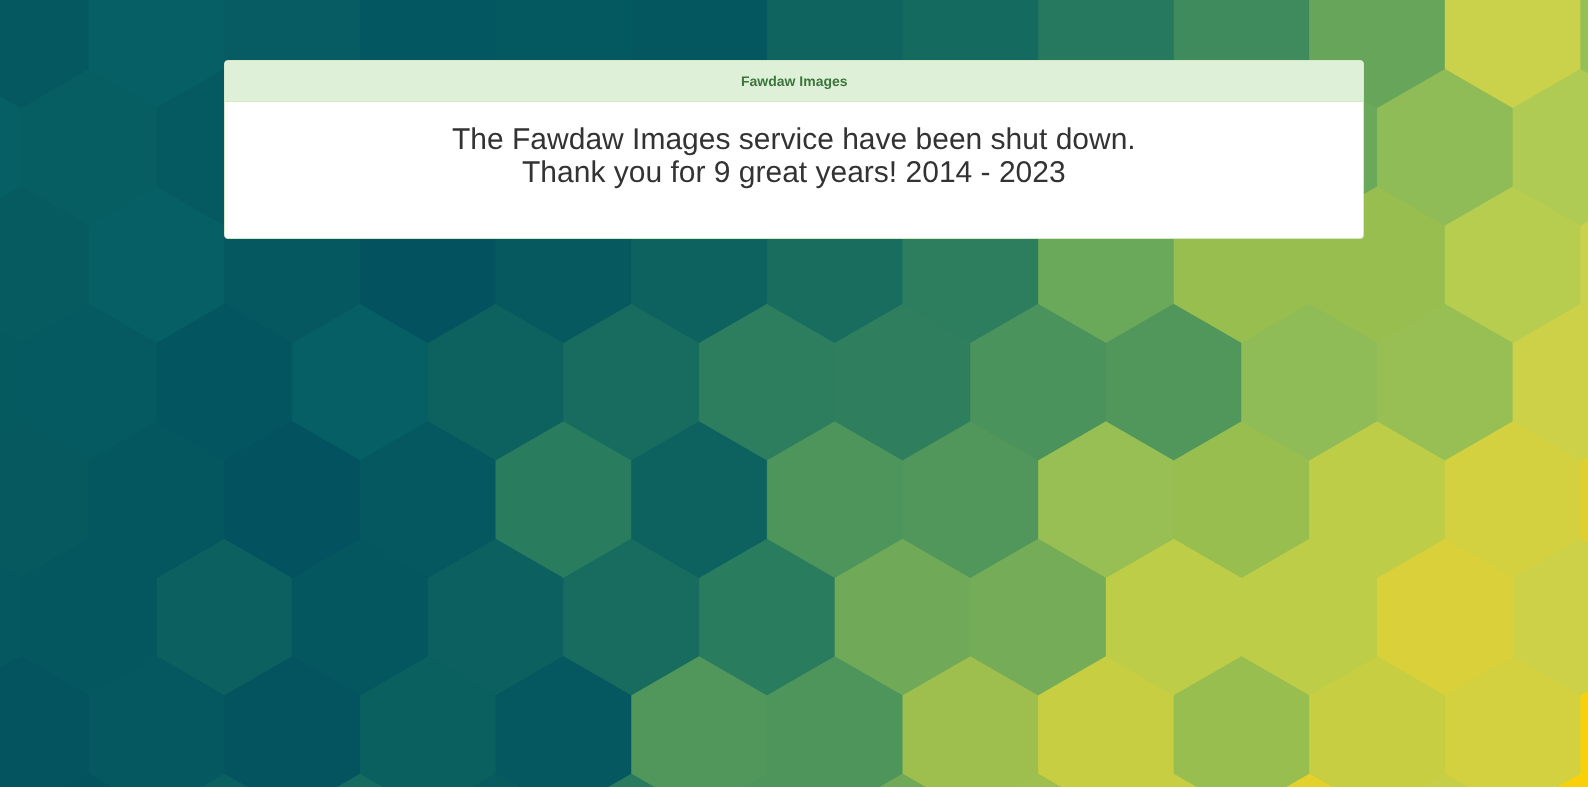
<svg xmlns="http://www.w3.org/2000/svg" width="1588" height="787">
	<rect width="100%" height="100%" fill="#FFFFFF" />
	<image x="0" y="0" width="1588" height="787" href="assets/img1.png" />
	<rect x="224.5" y="60.5" width="1139" height="178" rx="3.5" fill="#FFFFFF" stroke="#D6E9C6" />
	<path d="M228 61H1360C1361.5 61 1363 62.5 1363 64V102H225V64C225 62.5 226.5 61 228 61Z" fill="#DFF0D8" />
	<rect x="225" y="101" width="1138" height="1" fill="#D6E9C6" />
	<text x="741" y="86" font-family="Liberation Sans" font-size="14" font-weight="700" fill="#3C763D">Fawdaw Images</text>
	<g font-family="Liberation Sans" font-size="30" fill="#333333">
		<text x="452" y="149">The Fawdaw Images service have been shut down.</text>
		<text x="522" y="182">Thank you for 9 great years! 2014 - 2023</text>
	</g>
</svg>
